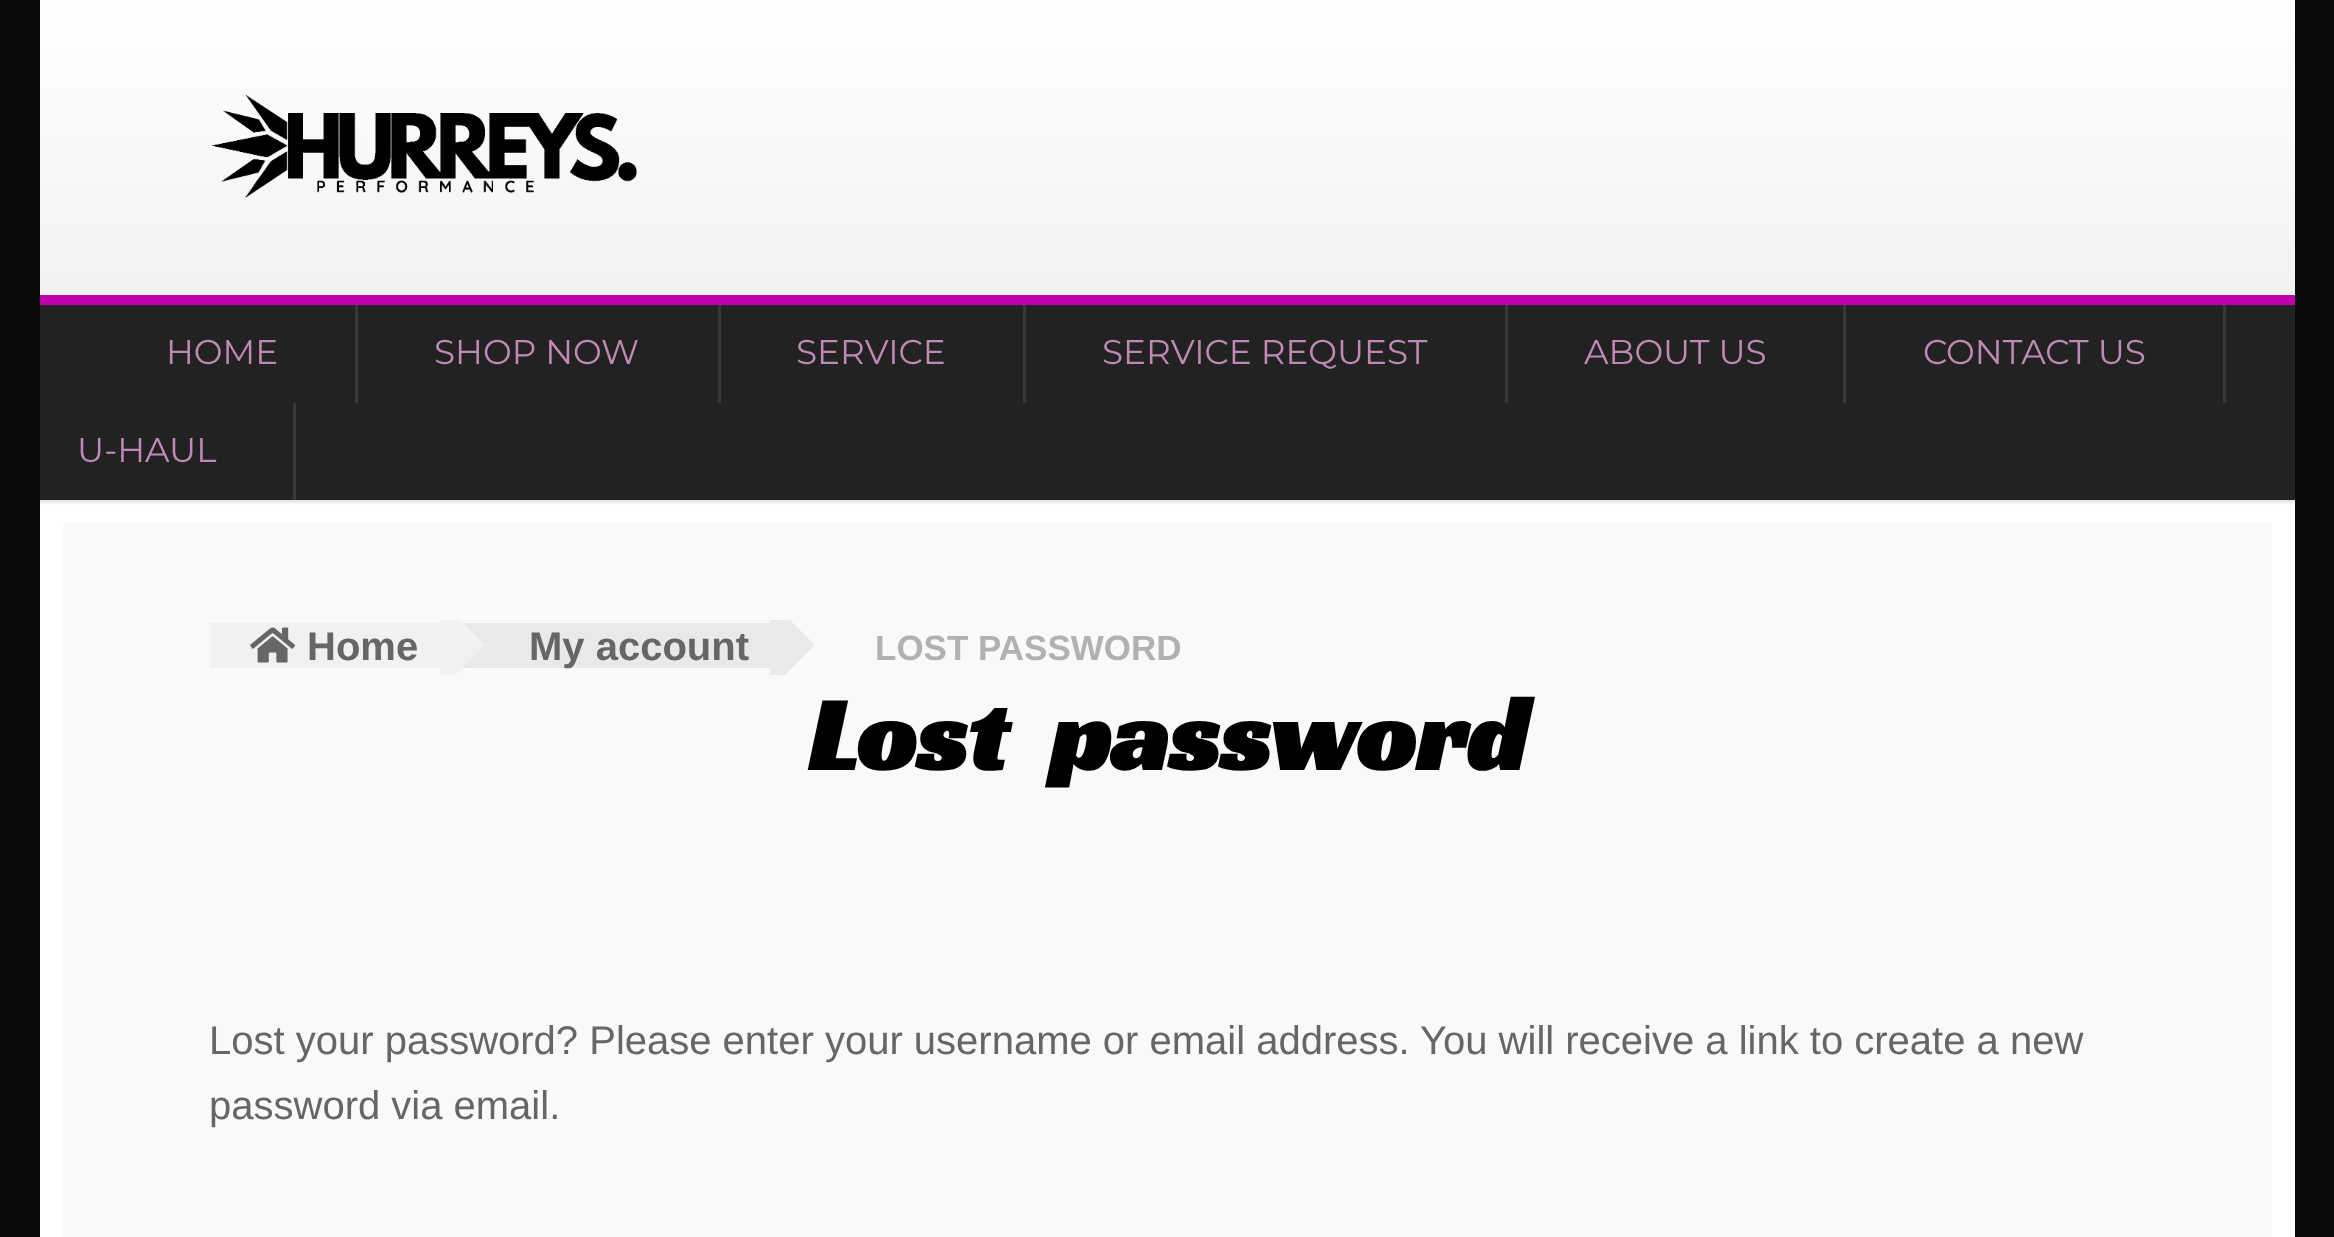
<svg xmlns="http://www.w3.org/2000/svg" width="2334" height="1237">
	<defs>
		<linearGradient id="g1" gradientUnits="userSpaceOnUse" x1="1168" y1="0" x2="1168" y2="295"><stop offset="0" stop-color="#FFFFFF" /><stop offset="1" stop-color="#F2F2F2" /></linearGradient>
		<clipPath id="clip1"><rect x="210" y="620" width="1915" height="55" /></clipPath>
	</defs>
	<rect width="100%" height="100%" fill="#0A0A0A" />
	<rect x="40" y="0" width="2255" height="295" fill="url(#g1)" />
	<image x="211" y="94" width="426" height="104" href="assets/img1.png" />
	<rect x="51.5" y="511.5" width="2232" height="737" fill="#F9F9F9" stroke="#FFFFFF" stroke-width="23" />
	<rect x="40" y="298" width="2255" height="205" fill="#000000" fill-opacity="0.1" filter="blur(1px)" />
	<rect x="40" y="305" width="2255" height="195" fill="#222222" />
	<rect x="40" y="295" width="2255" height="10" fill="#C000AB" />
	<rect x="355" y="305" width="3" height="98" fill="#383838" />
	<text x="166" y="364" font-family="Montserrat" font-size="34.25" fill="#BF89B6">HOME</text>
	<rect x="718" y="305" width="3" height="98" fill="#383838" />
	<text x="434" y="364" font-family="Montserrat" font-size="34.25" fill="#BF89B6">SHOP NOW</text>
	<rect x="1023" y="305" width="3" height="98" fill="#383838" />
	<text x="796" y="364" font-family="Montserrat" font-size="34.25" fill="#BF89B6">SERVICE</text>
	<rect x="1505" y="305" width="3" height="98" fill="#383838" />
	<text x="1102" y="364" font-family="Montserrat" font-size="34.25" fill="#BF89B6">SERVICE REQUEST</text>
	<rect x="1843" y="305" width="3" height="98" fill="#383838" />
	<text x="1584" y="364" font-family="Montserrat" font-size="34.25" fill="#BF89B6">ABOUT US</text>
	<rect x="2223" y="305" width="3" height="98" fill="#383838" />
	<text x="1923" y="364" font-family="Montserrat" font-size="34.25" fill="#BF89B6">CONTACT US</text>
	<rect x="293" y="403" width="3" height="97" fill="#383838" />
	<text x="77" y="462" font-family="Montserrat" font-size="34.25" fill="#BF89B6">U-HAUL</text>
	<rect x="210" y="623" width="230" height="45" fill="#F1F1F1" />
	<image x="250" y="627" width="45" height="36" href="assets/img2.png" />
	<text x="307" y="660" font-family="Arimo" font-size="40" font-weight="700" fill="#666666">Home</text>
	<rect x="462" y="623" width="308" height="45" fill="#E9E9E9" />
	<g clip-path="url(#clip1)">
		<path d="M440 690V600L485 645Z" fill="#F1F1F1" />
	</g>
	<text x="529" y="660" font-family="Arimo" font-size="40" font-weight="700" fill="#666666">My account</text>
	<g clip-path="url(#clip1)">
		<path d="M770 690V600L815 645Z" fill="#E9E9E9" />
	</g>
	<text x="875" y="660" font-family="Arimo" font-size="35" font-weight="700" fill="#B1B1B1">LOST PASSWORD</text>
	<text x="808" y="770" word-spacing="22" font-family="Racing Sans One" font-size="104.75" font-weight="700" fill="#000000">Lost password</text>
	<g font-family="Arimo" font-size="40" fill="#666666">
		<text x="209" y="1054">Lost your password? Please enter your username or email address. You will receive a link to create a new</text>
		<text x="209" y="1119">password via email.</text>
	</g>
</svg>
